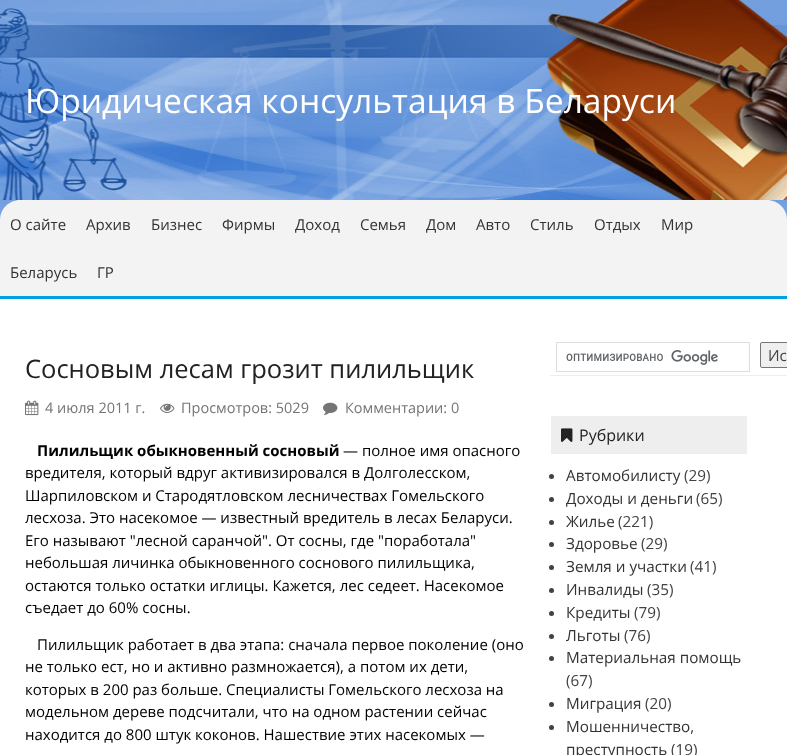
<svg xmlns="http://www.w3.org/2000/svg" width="787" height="755">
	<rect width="100%" height="100%" fill="#FFFFFF" />
	<image x="0" y="200" width="787" height="20" href="assets/img1.png" />
	<image x="0" y="0" width="787" height="200" href="assets/img2.png" />
	<text x="25" y="113" font-family="Open Sans" font-size="33.6" fill="#FFFFFF">Юридическая консультация в Беларуси</text>
	<path d="M20 200H767C778 200 787 209 787 220V299H0V220C0 209 9 200 20 200Z" fill="#F3F3F3" />
	<rect x="0" y="296" width="787" height="3" fill="#00A1E0" />
	<g font-family="Open Sans" font-size="15" fill="#333333">
		<text x="10" y="230">О сайте</text>
		<text x="86" y="230">Архив</text>
		<text x="151" y="230">Бизнес</text>
		<text x="222" y="230">Фирмы</text>
		<text x="295" y="230">Доход</text>
		<text x="360" y="230">Семья</text>
		<text x="426" y="230">Дом</text>
		<text x="476" y="230">Авто</text>
		<text x="530" y="230">Стиль</text>
		<text x="594" y="230">Отдых</text>
		<text x="661" y="230">Мир</text>
		<text x="10" y="278">Беларусь</text>
		<text x="97" y="278">ГР</text>
	</g>
	<text x="25" y="378" font-family="Open Sans" font-size="25.5" fill="#222222">Сосновым лесам грозит пилильщик</text>
	<image x="25" y="400" width="14" height="16" href="assets/img3.png" />
	<text x="45" y="413" font-family="Open Sans" font-size="14.5" fill="#757575">4 июля 2011 г.</text>
	<image x="160" y="403" width="15" height="10" href="assets/img4.png" />
	<text x="181" y="413" font-family="Open Sans" font-size="14.5" fill="#757575">Просмотров: 5029</text>
	<image x="323" y="402" width="15" height="13" href="assets/img5.png" />
	<text x="345" y="413" font-family="Open Sans" font-size="14.5" fill="#757575">Комментарии: 0</text>
	<text x="37" y="456" font-family="Open Sans" font-size="15" font-weight="700" fill="#000000">Пилильщик обыкновенный сосновый</text>
	<g font-family="Open Sans" font-size="15" fill="#000000">
		<text x="343" y="456">— полное имя опасного</text>
		<text x="25" y="478">вредителя, который вдруг активизировался в Долголесском,</text>
		<text x="25" y="501">Шарпиловском и Стародятловском лесничествах Гомельского</text>
		<text x="25" y="523">лесхоза. Это насекомое — известный вредитель в лесах Беларуси.</text>
		<text x="25" y="546">Его называют "лесной саранчой". От сосны, где "поработала"</text>
		<text x="25" y="568">небольшая личинка обыкновенного соснового пилильщика,</text>
		<text x="25" y="591">остаются только остатки иглицы. Кажется, лес седеет. Насекомое</text>
		<text x="25" y="613">съедает до 60% сосны.</text>
		<text x="37" y="650">Пилильщик работает в два этапа: сначала первое поколение (оно</text>
		<text x="25" y="672">не только ест, но и активно размножается), а потом их дети,</text>
		<text x="25" y="695">которых в 200 раз больше. Специалисты Гомельского лесхоза на</text>
		<text x="25" y="717">модельном дереве подсчитали, что на одном растении сейчас</text>
		<text x="25" y="740">находится до 800 штук коконов. Нашествие этих насекомых —</text>
	</g>
	<image x="566" y="350" width="152" height="15" href="assets/img6.png" />
	<rect x="556.5" y="342.5" width="193" height="29" fill="none" stroke="#DDDDDD" />
	<rect x="550" y="375" width="237" height="1" fill="#EEEEEE" />
	<rect x="760.5" y="342.5" width="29" height="25" rx="1.5" fill="#EFEFEF" stroke="#767676" />
	<text x="768" y="361" font-family="Open Sans" font-size="15.25" fill="#424242">Ис</text>
	<rect x="551" y="416" width="196" height="38" fill="#EEEEEE" />
	<image x="561" y="428" width="12" height="14" href="assets/img7.png" />
	<text x="579" y="441" font-family="Open Sans" font-size="16" fill="#222222">Рубрики</text>
	<circle cx="551.5" cy="476.5" r="2.5" fill="#424242" />
	<text x="566" y="481" font-family="Open Sans" font-size="15.25" fill="#333333">Автомобилисту</text>
	<text x="684" y="481" font-family="Open Sans" font-size="15.25" fill="#424242">(29)</text>
	<circle cx="551.5" cy="499.5" r="2.5" fill="#424242" />
	<text x="566" y="504" font-family="Open Sans" font-size="15.25" fill="#333333">Доходы и деньги</text>
	<text x="696" y="504" font-family="Open Sans" font-size="15.25" fill="#424242">(65)</text>
	<circle cx="551.5" cy="522.5" r="2.5" fill="#424242" />
	<text x="566" y="527" font-family="Open Sans" font-size="15.25" fill="#333333">Жилье</text>
	<text x="618" y="527" font-family="Open Sans" font-size="15.25" fill="#424242">(221)</text>
	<circle cx="551.5" cy="544.5" r="2.5" fill="#424242" />
	<text x="566" y="549" font-family="Open Sans" font-size="15.25" fill="#333333">Здоровье</text>
	<text x="641" y="549" font-family="Open Sans" font-size="15.25" fill="#424242">(29)</text>
	<circle cx="551.5" cy="567.5" r="2.5" fill="#424242" />
	<text x="566" y="572" font-family="Open Sans" font-size="15.25" fill="#333333">Земля и участки</text>
	<text x="690" y="572" font-family="Open Sans" font-size="15.25" fill="#424242">(41)</text>
	<circle cx="551.5" cy="590.5" r="2.5" fill="#424242" />
	<text x="566" y="595" font-family="Open Sans" font-size="15.25" fill="#333333">Инвалиды</text>
	<text x="647" y="595" font-family="Open Sans" font-size="15.25" fill="#424242">(35)</text>
	<circle cx="551.5" cy="613.5" r="2.5" fill="#424242" />
	<text x="566" y="618" font-family="Open Sans" font-size="15.25" fill="#333333">Кредиты</text>
	<text x="634" y="618" font-family="Open Sans" font-size="15.25" fill="#424242">(79)</text>
	<circle cx="551.5" cy="636.5" r="2.5" fill="#424242" />
	<text x="566" y="641" font-family="Open Sans" font-size="15.25" fill="#333333">Льготы</text>
	<text x="624" y="641" font-family="Open Sans" font-size="15.25" fill="#424242">(76)</text>
	<circle cx="551.5" cy="658.5" r="2.5" fill="#424242" />
	<text x="566" y="663" font-family="Open Sans" font-size="15.25" fill="#333333">Материальная помощь</text>
	<text x="566" y="686" font-family="Open Sans" font-size="15.25" fill="#424242">(67)</text>
	<circle cx="551.5" cy="704.5" r="2.5" fill="#424242" />
	<text x="566" y="709" font-family="Open Sans" font-size="15.25" fill="#333333">Миграция</text>
	<text x="645" y="709" font-family="Open Sans" font-size="15.25" fill="#424242">(20)</text>
	<circle cx="551.5" cy="727.5" r="2.5" fill="#424242" />
	<g font-family="Open Sans" font-size="15.25" fill="#333333">
		<text x="566" y="732">Мошенничество,</text>
		<text x="566" y="755">преступность</text>
	</g>
	<text x="671" y="755" font-family="Open Sans" font-size="15.25" fill="#424242">(19)</text>
</svg>
